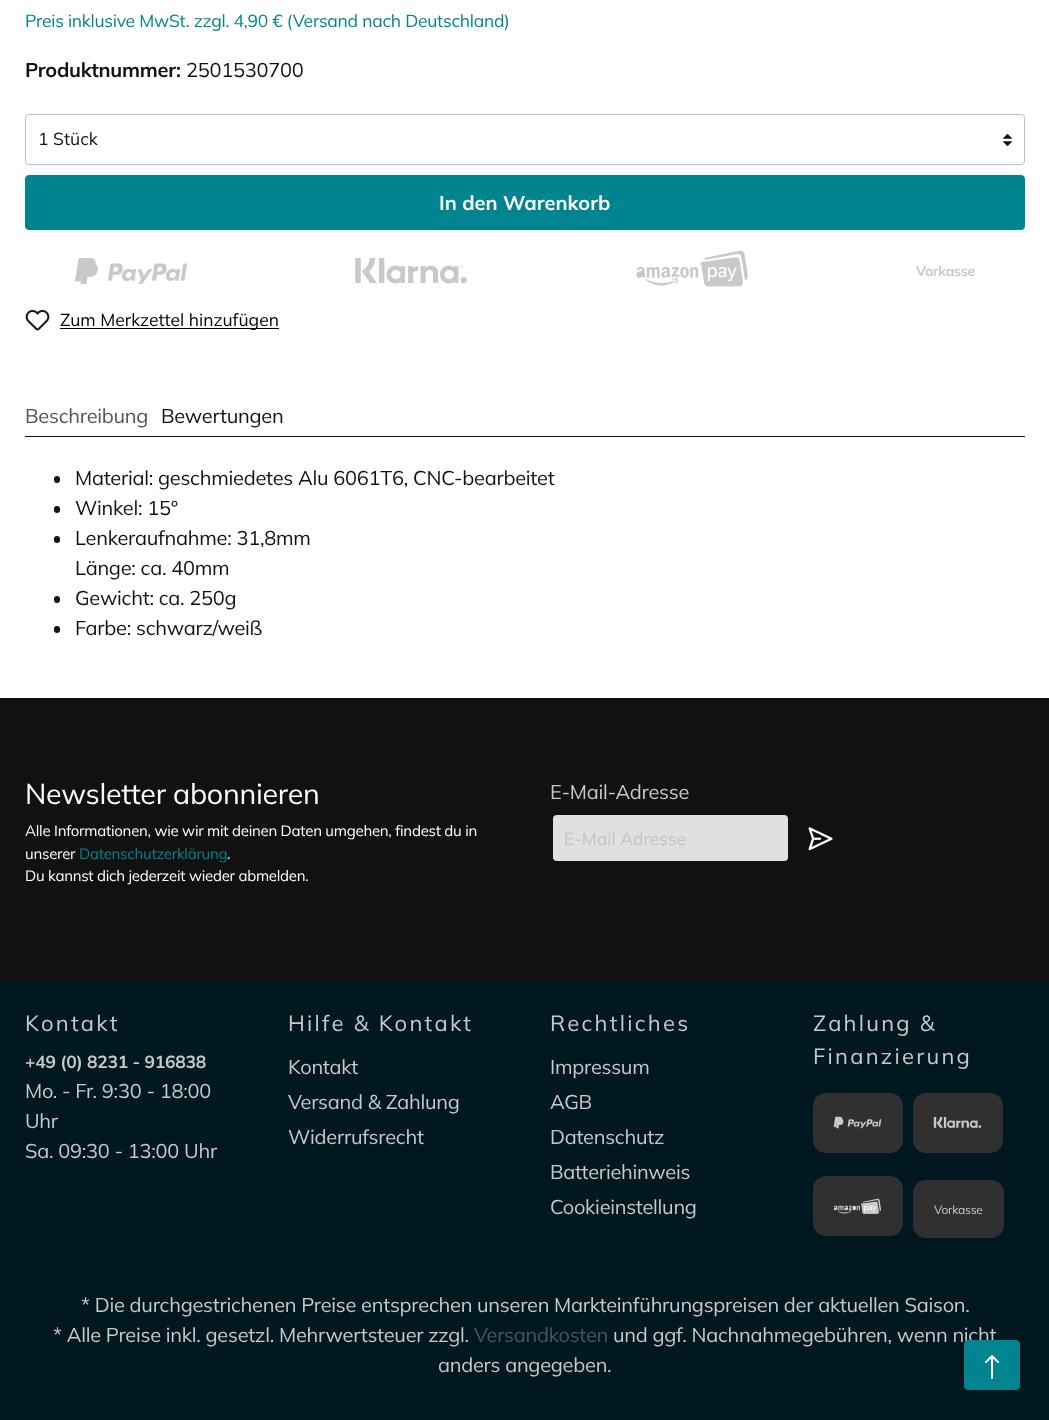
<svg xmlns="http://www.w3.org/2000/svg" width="1049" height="1420">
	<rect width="100%" height="100%" fill="#FFFFFF" />
	<text x="25" y="27" font-family="Mulish" font-size="17.5" font-weight="200" letter-spacing="-0.25" fill="#008490">Preis inklusive MwSt. zzgl. 4,90 € (Versand nach Deutschland)</text>
	<text x="25" y="77" font-family="'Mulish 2'" font-size="20" font-weight="200" letter-spacing="-0.25" fill="#121212">Produktnummer:</text>
	<text x="186" y="77" font-family="Mulish" font-size="20" font-weight="200" letter-spacing="-0.25" fill="#121212">2501530700</text>
	<image x="1003" y="134" width="10" height="12" href="assets/img1.png" />
	<rect x="25.5" y="114.5" width="999" height="50" rx="3.5" fill="none" stroke="#BCC1C7" />
	<text x="38" y="145" font-family="Mulish" font-size="17.5" font-weight="200" fill="#121212">1 Stück</text>
	<rect x="25.5" y="175.5" width="999" height="54" rx="3.5" fill="#008490" stroke="#008490" />
	<text x="439" y="210" font-family="'Mulish 2'" font-size="20" font-weight="200" fill="#FFFFFF">In den Warenkorb</text>
	<image x="75" y="258" width="112" height="26" href="assets/img2.png" />
	<image x="355" y="258" width="112" height="26" href="assets/img3.png" />
	<image x="636" y="250" width="112" height="37" href="assets/img4.png" />
	<text x="916" y="276" font-family="'Mulish 2'" font-size="14" font-weight="200" letter-spacing="-0.25" fill="#C9C9C9">Vorkasse</text>
	<image x="25" y="309" width="25" height="22" href="assets/img5.png" />
	<rect x="60" y="328" width="219" height="1" fill="#000000" />
	<text x="60" y="326" font-family="Mulish" font-size="17.5" font-weight="200" fill="#000000">Zum Merkzettel hinzufügen</text>
	<text x="25" y="423" font-family="Mulish" font-size="20" font-weight="200" letter-spacing="-0.25" fill="#4A545B">Beschreibung</text>
	<text x="161" y="423" font-family="Mulish" font-size="20" font-weight="200" letter-spacing="-0.25" fill="#121212">Bewertungen</text>
	<rect x="25" y="436" width="1000" height="1" fill="#111111" />
	<rect x="54" y="476" width="6" height="7" rx="3" fill="#121212" />
	<text x="75" y="485" font-family="Mulish" font-size="20" font-weight="200" letter-spacing="-0.25" fill="#121212">Material: geschmiedetes Alu 6061T6, CNC-bearbeitet</text>
	<rect x="54" y="506" width="6" height="7" rx="3" fill="#121212" />
	<text x="75" y="515" font-family="Mulish" font-size="20" font-weight="200" letter-spacing="-0.25" fill="#121212">Winkel: 15°</text>
	<rect x="54" y="536" width="6" height="7" rx="3" fill="#121212" />
	<g font-family="Mulish" font-size="20" font-weight="200" letter-spacing="-0.25" fill="#121212">
		<text x="75" y="545">Lenkeraufnahme: 31,8mm</text>
		<text x="75" y="575">Länge: ca. 40mm</text>
	</g>
	<rect x="54" y="596" width="6" height="7" rx="3" fill="#121212" />
	<text x="75" y="605" font-family="Mulish" font-size="20" font-weight="200" letter-spacing="-0.25" fill="#121212">Gewicht: ca. 250g</text>
	<rect x="54" y="626" width="6" height="7" rx="3" fill="#121212" />
	<text x="75" y="635" font-family="Mulish" font-size="20" font-weight="200" letter-spacing="-0.25" fill="#121212">Farbe: schwarz/weiß</text>
	<rect x="0" y="698" width="1049" height="283" fill="#111111" />
	<text x="25" y="804" font-family="Mulish" font-size="28.6" font-weight="200" letter-spacing="-0.25" fill="#FFFFFF">Newsletter abonnieren</text>
	<g font-family="Mulish" font-size="15" font-weight="200" letter-spacing="-0.25" fill="#FFFFFF">
		<text x="25" y="836">Alle Informationen, wie wir mit deinen Daten umgehen, findest du in</text>
		<text x="25" y="859">unserer</text>
	</g>
	<text x="79" y="859" font-family="Mulish" font-size="15" font-weight="200" letter-spacing="-0.25" fill="#008490">Datenschutzerklärung</text>
	<g font-family="Mulish" font-size="15" font-weight="200" letter-spacing="-0.25" fill="#FFFFFF">
		<text x="227" y="859">.</text>
		<text x="25" y="881">Du kannst dich jederzeit wieder abmelden.</text>
	</g>
	<text x="550" y="799" font-family="Mulish" font-size="20" font-weight="200" letter-spacing="-0.25" fill="#C9C9C9">E-Mail-Adresse</text>
	<rect x="553" y="815" width="235" height="46" rx="4" fill="#E0E0E0" />
	<text x="564" y="845" font-family="Mulish" font-size="17.5" font-weight="200" fill="#C3C3C3">E-Mail Adresse</text>
	<image x="808" y="827" width="25" height="24" href="assets/img6.png" />
	<rect x="0" y="981" width="1049" height="439" fill="#011820" />
	<text x="25" y="1031" font-family="Mulish" font-size="22" font-weight="200" letter-spacing="2.25" fill="#C9C9C9">Kontakt</text>
	<text x="25" y="1068" font-family="'Mulish 2'" font-size="17.5" font-weight="200" letter-spacing="-0.25" fill="#C9C9C9">+49 (0) 8231 - 916838</text>
	<g font-family="Mulish" font-size="20" font-weight="200" letter-spacing="-0.25" fill="#C9C9C9">
		<text x="25" y="1098">Mo. - Fr. 9:30 - 18:00</text>
		<text x="25" y="1128">Uhr</text>
		<text x="25" y="1158">Sa. 09:30 - 13:00 Uhr</text>
	</g>
	<text x="288" y="1031" font-family="Mulish" font-size="22" font-weight="200" letter-spacing="2.25" fill="#C9C9C9">Hilfe &amp; Kontakt</text>
	<g font-family="Mulish" font-size="20" font-weight="200" letter-spacing="-0.25" fill="#C9C9C9">
		<text x="288" y="1074">Kontakt</text>
		<text x="288" y="1109">Versand &amp; Zahlung</text>
		<text x="288" y="1144">Widerrufsrecht</text>
	</g>
	<text x="550" y="1031" font-family="Mulish" font-size="22" font-weight="200" letter-spacing="2.25" fill="#C9C9C9">Rechtliches</text>
	<g font-family="Mulish" font-size="20" font-weight="200" letter-spacing="-0.25" fill="#C9C9C9">
		<text x="550" y="1074">Impressum</text>
		<text x="550" y="1109">AGB</text>
		<text x="550" y="1144">Datenschutz</text>
		<text x="550" y="1179">Batteriehinweis</text>
		<text x="550" y="1214">Cookieinstellung</text>
	</g>
	<g font-family="Mulish" font-size="22" font-weight="200" letter-spacing="2.25" fill="#C9C9C9">
		<text x="813" y="1031">Zahlung &amp;</text>
		<text x="813" y="1064">Finanzierung</text>
	</g>
	<rect x="813" y="1093" width="90" height="60" rx="13" fill="#303030" />
	<image x="833" y="1116" width="49" height="13" href="assets/img7.png" />
	<rect x="913" y="1093" width="90" height="60" rx="13" fill="#303030" />
	<image x="933" y="1117" width="49" height="11" href="assets/img8.png" />
	<rect x="813" y="1176" width="90" height="60" rx="13" fill="#303030" />
	<image x="833" y="1198" width="48" height="16" href="assets/img9.png" />
	<rect x="913" y="1180" width="91" height="58" rx="13" fill="#303030" />
	<text x="934" y="1214" font-family="Mulish" font-size="12" font-weight="200" letter-spacing="-0.25" fill="#C9C9C9">Vorkasse</text>
	<g font-family="Mulish" font-size="20" font-weight="200" letter-spacing="-0.25" fill="#C9C9C9">
		<text x="81" y="1312">* Die durchgestrichenen Preise entsprechen unseren Markteinführungspreisen der aktuellen Saison.</text>
		<text x="53" y="1342">* Alle Preise inkl. gesetzl. Mehrwertsteuer zzgl.</text>
	</g>
	<text x="474" y="1342" font-family="Mulish" font-size="20" font-weight="200" letter-spacing="-0.25" fill="#4A545B">Versandkosten</text>
	<g font-family="Mulish" font-size="20" font-weight="200" letter-spacing="-0.25" fill="#C9C9C9">
		<text x="613" y="1342">und ggf. Nachnahmegebühren, wenn nicht</text>
		<text x="438" y="1372">anders angegeben.</text>
	</g>
	<rect x="964.5" y="1340.5" width="55" height="49" rx="3.5" fill="#008490" stroke="#008490" />
	<image x="985" y="1355" width="14" height="24" href="assets/img10.png" />
</svg>
